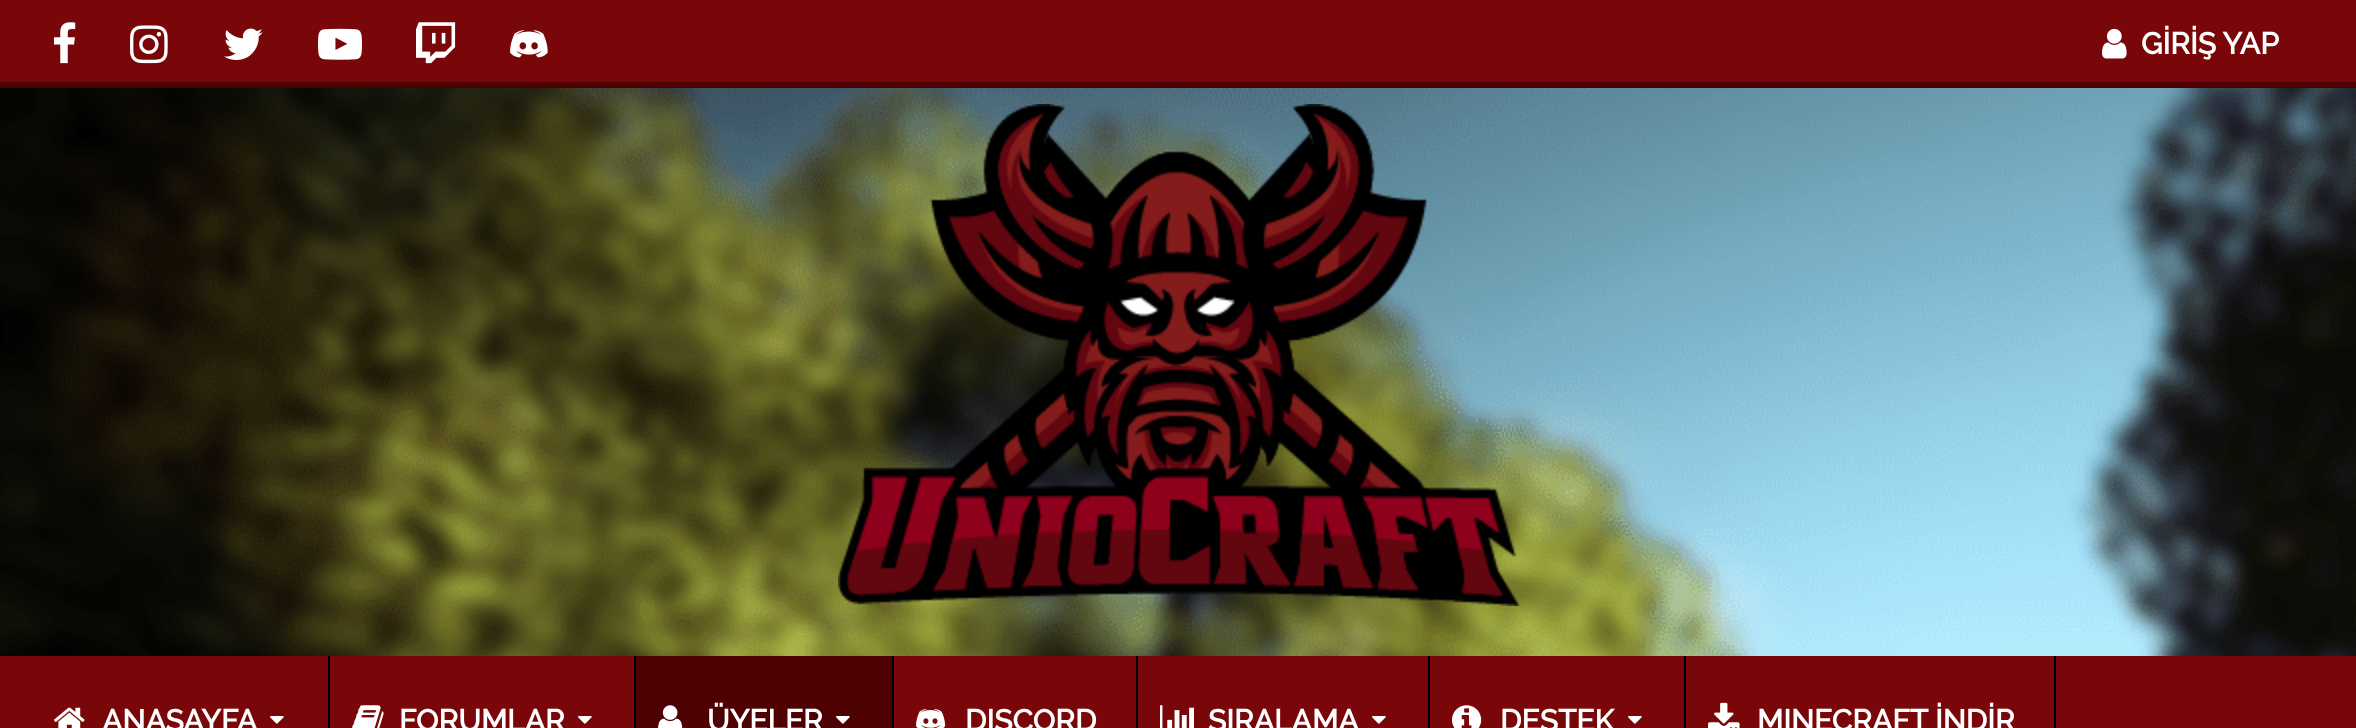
<svg xmlns="http://www.w3.org/2000/svg" width="2356" height="728">
	<rect width="100%" height="100%" fill="#FFFFFF" />
	<image x="0" y="88" width="2356" height="568" href="assets/img1.png" />
	<rect x="0" y="0" width="2356" height="82" fill="#790709" />
	<rect x="0" y="82" width="2356" height="6" fill="#4E0102" />
	<image x="54" y="22" width="22" height="42" href="assets/img2.png" />
	<image x="130" y="25" width="38" height="39" href="assets/img3.png" />
	<image x="224" y="28" width="39" height="32" href="assets/img4.png" />
	<image x="318" y="28" width="44" height="32" href="assets/img5.png" />
	<image x="416" y="22" width="40" height="42" href="assets/img6.png" />
	<image x="510" y="30" width="38" height="28" href="assets/img7.png" />
	<image x="2102" y="28" width="25" height="31" href="assets/img8.png" />
	<text x="2141" y="54" font-family="Raleway" font-size="30" font-weight="700" fill="#FFFFFF">GİRİŞ YAP</text>
	<image x="838" y="104" width="682" height="502" href="assets/img9.png" />
	<rect x="0" y="656" width="2356" height="72" fill="#790709" />
	<rect x="328" y="656" width="2" height="72" fill="#000000" />
	<image x="54" y="707" width="31" height="21" href="assets/img10.png" />
	<text x="102" y="731" font-family="Raleway" font-size="30" font-weight="700" fill="#FFFFFF">ANASAYFA</text>
	<image x="270" y="716" width="14" height="8" href="assets/img11.png" />
	<rect x="634" y="656" width="2" height="72" fill="#000000" />
	<image x="352" y="705" width="32" height="23" href="assets/img12.png" />
	<text x="399" y="731" font-family="Raleway" font-size="30" font-weight="700" fill="#FFFFFF">FORUMLAR</text>
	<image x="578" y="716" width="14" height="8" href="assets/img11.png" />
	<rect x="636" y="656" width="256" height="72" fill="#4E0102" />
	<rect x="892" y="656" width="2" height="72" fill="#000000" />
	<image x="658" y="705" width="25" height="23" href="assets/img13.png" />
	<text x="707" y="731" font-family="Raleway" font-size="30" font-weight="700" fill="#FFFFFF">ÜYELER</text>
	<image x="836" y="716" width="14" height="8" href="assets/img14.png" />
	<rect x="1136" y="656" width="2" height="72" fill="#000000" />
	<image x="916" y="709" width="30" height="19" href="assets/img15.png" />
	<text x="965" y="731" font-family="Raleway" font-size="30" font-weight="700" fill="#FFFFFF">DISCORD</text>
	<rect x="1428" y="656" width="2" height="72" fill="#000000" />
	<image x="1160" y="705" width="34" height="23" href="assets/img16.png" />
	<text x="1208" y="731" font-family="Raleway" font-size="30" font-weight="700" fill="#FFFFFF">SIRALAMA</text>
	<image x="1372" y="716" width="14" height="8" href="assets/img11.png" />
	<rect x="1684" y="656" width="2" height="72" fill="#000000" />
	<image x="1452" y="705" width="30" height="23" href="assets/img17.png" />
	<text x="1500" y="731" font-family="Raleway" font-size="30" font-weight="700" fill="#FFFFFF">DESTEK</text>
	<image x="1628" y="716" width="14" height="8" href="assets/img11.png" />
	<rect x="2054" y="656" width="2" height="72" fill="#000000" />
	<image x="1708" y="702" width="32" height="26" href="assets/img18.png" />
	<text x="1757" y="731" font-family="Raleway" font-size="30" font-weight="700" fill="#FFFFFF">MINECRAFT İNDİR</text>
</svg>
